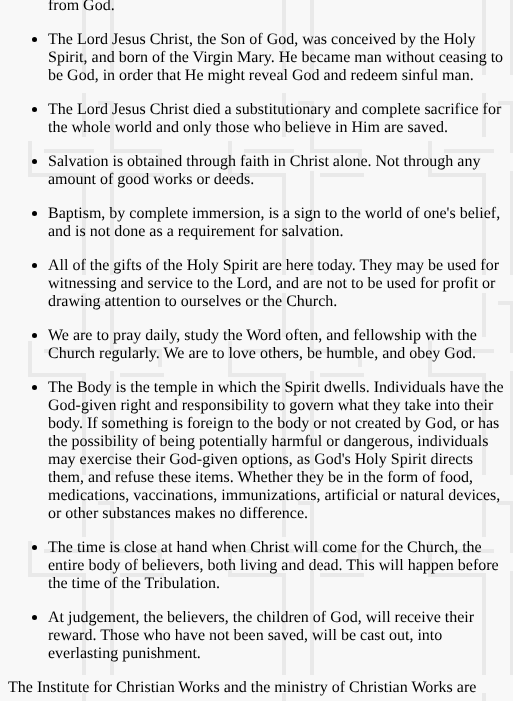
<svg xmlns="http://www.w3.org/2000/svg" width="513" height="701">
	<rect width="100%" height="100%" fill="#FFFFFF" />
	<image x="0" y="0" width="513" height="701" href="assets/img1.png" />
	<text x="48" y="10" font-family="Liberation Serif" font-size="16" fill="#000000">from God.</text>
	<circle cx="34.5" cy="39.5" r="2.5" fill="#000000" />
	<g font-family="Liberation Serif" font-size="16" fill="#000000">
		<text x="48" y="44">The Lord Jesus Christ, the Son of God, was conceived by the Holy</text>
		<text x="48" y="62">Spirit, and born of the Virgin Mary. He became man without ceasing to</text>
		<text x="48" y="80">be God, in order that He might reveal God and redeem sinful man.</text>
	</g>
	<circle cx="34.5" cy="109.5" r="2.5" fill="#000000" />
	<g font-family="Liberation Serif" font-size="16" fill="#000000">
		<text x="48" y="114">The Lord Jesus Christ died a substitutionary and complete sacrifice for</text>
		<text x="48" y="132">the whole world and only those who believe in Him are saved.</text>
	</g>
	<circle cx="34.5" cy="161.5" r="2.5" fill="#000000" />
	<g font-family="Liberation Serif" font-size="16" fill="#000000">
		<text x="48" y="166">Salvation is obtained through faith in Christ alone. Not through any</text>
		<text x="48" y="184">amount of good works or deeds.</text>
	</g>
	<circle cx="34.5" cy="213.5" r="2.5" fill="#000000" />
	<g font-family="Liberation Serif" font-size="16" fill="#000000">
		<text x="48" y="218">Baptism, by complete immersion, is a sign to the world of one's belief,</text>
		<text x="48" y="236">and is not done as a requirement for salvation.</text>
	</g>
	<circle cx="34.5" cy="265.5" r="2.5" fill="#000000" />
	<g font-family="Liberation Serif" font-size="16" fill="#000000">
		<text x="48" y="270">All of the gifts of the Holy Spirit are here today. They may be used for</text>
		<text x="48" y="288">witnessing and service to the Lord, and are not to be used for profit or</text>
		<text x="48" y="306">drawing attention to ourselves or the Church.</text>
	</g>
	<circle cx="34.5" cy="335.5" r="2.5" fill="#000000" />
	<g font-family="Liberation Serif" font-size="16" fill="#000000">
		<text x="48" y="340">We are to pray daily, study the Word often, and fellowship with the</text>
		<text x="48" y="358">Church regularly. We are to love others, be humble, and obey God.</text>
	</g>
	<circle cx="34.5" cy="387.5" r="2.5" fill="#000000" />
	<g font-family="Liberation Serif" font-size="16" fill="#000000">
		<text x="48" y="392">The Body is the temple in which the Spirit dwells. Individuals have the</text>
		<text x="48" y="410">God-given right and responsibility to govern what they take into their</text>
		<text x="48" y="428">body. If something is foreign to the body or not created by God, or has</text>
		<text x="48" y="446">the possibility of being potentially harmful or dangerous, individuals</text>
		<text x="48" y="464">may exercise their God-given options, as God's Holy Spirit directs</text>
		<text x="48" y="482">them, and refuse these items. Whether they be in the form of food,</text>
		<text x="48" y="500">medications, vaccinations, immunizations, artificial or natural devices,</text>
		<text x="48" y="518">or other substances makes no difference.</text>
	</g>
	<circle cx="34.5" cy="547.5" r="2.5" fill="#000000" />
	<g font-family="Liberation Serif" font-size="16" fill="#000000">
		<text x="48" y="552">The time is close at hand when Christ will come for the Church, the</text>
		<text x="48" y="570">entire body of believers, both living and dead. This will happen before</text>
		<text x="48" y="588">the time of the Tribulation.</text>
	</g>
	<circle cx="34.5" cy="617.5" r="2.5" fill="#000000" />
	<g font-family="Liberation Serif" font-size="16" fill="#000000">
		<text x="48" y="622">At judgement, the believers, the children of God, will receive their</text>
		<text x="48" y="640">reward. Those who have not been saved, will be cast out, into</text>
		<text x="48" y="658">everlasting punishment.</text>
		<text x="8" y="692">The Institute for Christian Works and the ministry of Christian Works are</text>
	</g>
</svg>
